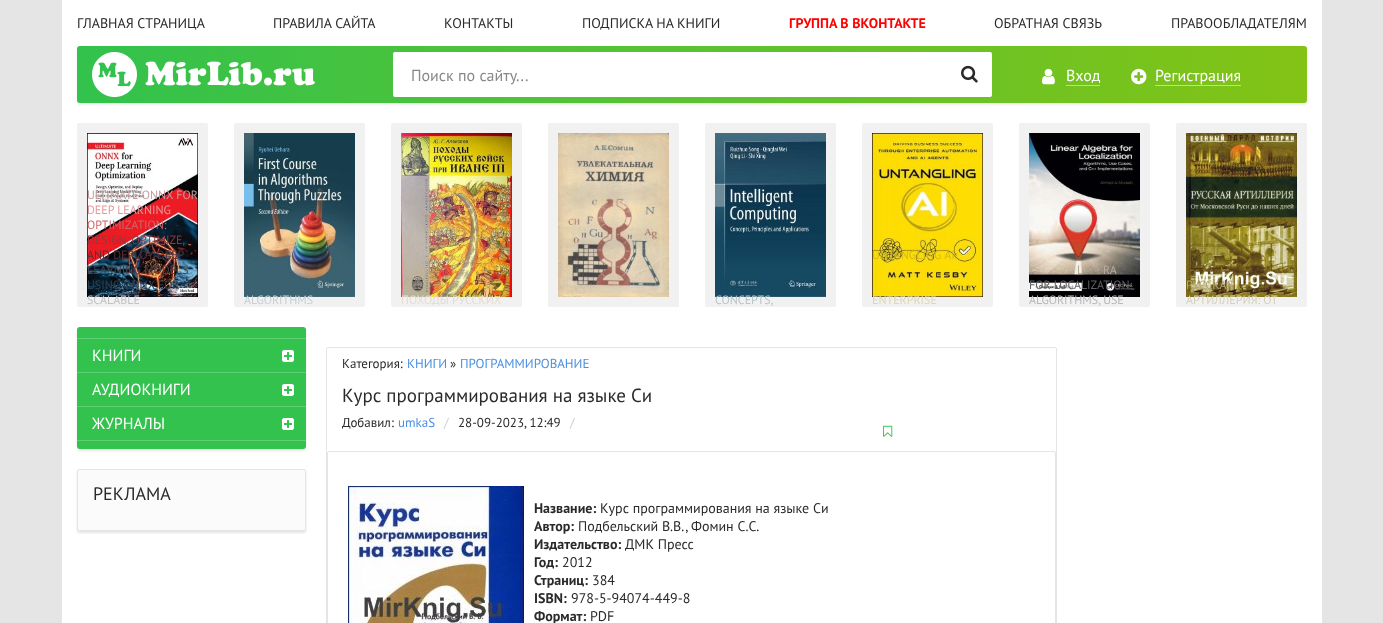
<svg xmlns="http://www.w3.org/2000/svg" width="1383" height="623">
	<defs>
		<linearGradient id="g1" gradientUnits="userSpaceOnUse" x1="77" y1="75" x2="1307" y2="74"><stop offset="0" stop-color="#32C24D" /><stop offset="1" stop-color="#83C315" /></linearGradient>
	</defs>
	<rect width="100%" height="100%" fill="#E5E5E5" />
	<rect x="62" y="0" width="1260" height="623" fill="#FFFFFF" />
	<g font-family="PT Sans" font-size="14" fill="#2A2A2A">
		<text x="77" y="28">ГЛАВНАЯ СТРАНИЦА</text>
		<text x="273" y="28">ПРАВИЛА САЙТА</text>
		<text x="444" y="28">КОНТАКТЫ</text>
		<text x="582" y="28">ПОДПИСКА НА КНИГИ</text>
	</g>
	<text x="789" y="28" font-family="PT Sans" font-size="14" font-weight="700" fill="#FF0000">ГРУППА В ВКОНТАКТЕ</text>
	<g font-family="PT Sans" font-size="14" fill="#2A2A2A">
		<text x="994" y="28">ОБРАТНАЯ СВЯЗЬ</text>
		<text x="1171" y="28">ПРАВООБЛАДАТЕЛЯМ</text>
	</g>
	<rect x="77" y="48" width="1230" height="57" rx="3" fill="#444444" fill-opacity="0.1" filter="blur(1px)" />
	<rect x="77" y="46" width="1230" height="57" rx="3" fill="url(#g1)" />
	<image x="92" y="52" width="223" height="45" href="assets/img1.png" />
	<rect x="393" y="52" width="599" height="45" rx="2" fill="#FFFFFF" />
	<text x="411" y="81" font-family="PT Sans" font-size="16" fill="#888888">Поиск по сайту...</text>
	<image x="961" y="65" width="17" height="18" href="assets/img2.png" />
	<image x="1042" y="68" width="13" height="17" href="assets/img3.png" />
	<text x="1066" y="81" font-family="PT Sans" font-size="16" fill="#FFFFFF">Вход</text>
	<rect x="1066" y="85" width="34" height="1" fill="#BAE18F" />
	<image x="1131" y="68" width="16" height="17" href="assets/img4.png" />
	<text x="1155" y="81" font-family="PT Sans" font-size="16" fill="#FFFFFF">Регистрация</text>
	<rect x="1155" y="85" width="86" height="1" fill="#FFFFFF" fill-opacity="0.5" />
	<rect x="77" y="123" width="131" height="184" rx="2" fill="#F1F1F1" />
	<image x="87" y="133" width="111" height="164" href="assets/img5.png" />
	<text x="87" y="199" font-family="PT Sans" font-size="12" fill="#C59C9E">ULTIMATE ONNX FOR</text>
	<text x="87" y="214" font-family="PT Sans" font-size="12" fill="#E6989B">DEEP LEARNING</text>
	<text x="87" y="229" font-family="PT Sans" font-size="12" fill="#D0646A">OPTIMIZATION:</text>
	<text x="87" y="244" font-family="PT Sans" font-size="12" fill="#8F3A42">DESIGN, OPTIMIZE,</text>
	<text x="87" y="259" font-family="PT Sans" font-size="12" fill="#5E2F33">AND DEPLOY DEEP</text>
	<text x="87" y="274" font-family="PT Sans" font-size="12" fill="#42454C">LEARNING MODELS</text>
	<text x="87" y="289" font-family="PT Sans" font-size="12" fill="#33414E">USING ONNX FOR</text>
	<text x="87" y="304" font-family="PT Sans" font-size="12" fill="#C0C3C6">SCALABLE</text>
	<rect x="234" y="123" width="131" height="184" rx="2" fill="#F1F1F1" />
	<image x="244" y="133" width="111" height="164" href="assets/img6.png" />
	<text x="244" y="304" font-family="PT Sans" font-size="12" fill="#C7D0D3">ALGORITHMS</text>
	<rect x="391" y="123" width="131" height="184" rx="2" fill="#F1F1F1" />
	<image x="401" y="133" width="111" height="164" href="assets/img7.png" />
	<text x="401" y="304" font-family="PT Sans" font-size="12" fill="#E4DDCF">ПОХОДЫ РУССКИХ</text>
	<rect x="548" y="123" width="131" height="184" rx="2" fill="#F1F1F1" />
	<image x="558" y="133" width="111" height="164" href="assets/img8.png" />
	<path d="M548 297H679V305C679 306 678 307 677 307H550C549 307 548 306 548 305Z" fill="#F1F1F1" />
	<rect x="705" y="123" width="131" height="184" rx="2" fill="#F1F1F1" />
	<image x="715" y="133" width="111" height="164" href="assets/img9.png" />
	<text x="715" y="304" font-family="PT Sans" font-size="12" fill="#B6C4CB">CONCEPTS,</text>
	<rect x="862" y="123" width="131" height="184" rx="2" fill="#F1F1F1" />
	<image x="872" y="133" width="111" height="164" href="assets/img10.png" />
	<text x="872" y="259" font-family="PT Sans" font-size="12" fill="#D4BB17">UNTANGLING AI:</text>
	<text x="872" y="304" font-family="PT Sans" font-size="12" fill="#DFD7B4">ENTERPRISE</text>
	<rect x="1019" y="123" width="131" height="184" rx="2" fill="#F1F1F1" />
	<image x="1029" y="133" width="111" height="164" href="assets/img11.png" />
	<g font-family="PT Sans" font-size="12" fill="#B7A998">
		<text x="1077" y="274">L</text>
		<text x="1103" y="274">RA</text>
	</g>
	<text x="1029" y="289" font-family="PT Sans" font-size="12" fill="#616062">FOR LOCALIZATION:</text>
	<text x="1029" y="304" font-family="PT Sans" font-size="12" fill="#B8B8B8">ALGORITHMS, USE</text>
	<rect x="1176" y="123" width="131" height="184" rx="2" fill="#F1F1F1" />
	<image x="1186" y="133" width="111" height="164" href="assets/img12.png" />
	<text x="1186" y="289" font-family="PT Sans" font-size="12" fill="#AFA573">РУССКАЯ</text>
	<text x="1186" y="304" font-family="PT Sans" font-size="12" fill="#D6D1BA">АРТИЛЛЕРИЯ: ОТ</text>
	<rect x="77" y="329" width="229" height="122" rx="3" fill="#000000" fill-opacity="0.1" filter="blur(1px)" />
	<rect x="77" y="327" width="229" height="122" rx="3" fill="#32C24D" />
	<rect x="77" y="338" width="229" height="1" fill="#5FCF74" />
	<rect x="77" y="372" width="229" height="1" fill="#5FCF74" />
	<text x="92" y="361" font-family="PT Sans" font-size="16" fill="#FFFFFF">КНИГИ</text>
	<image x="282" y="350" width="12" height="12" href="assets/img13.png" />
	<rect x="77" y="406" width="229" height="1" fill="#5FCF74" />
	<text x="92" y="395" font-family="PT Sans" font-size="16" fill="#FFFFFF">АУДИОКНИГИ</text>
	<image x="282" y="384" width="12" height="12" href="assets/img13.png" />
	<rect x="77" y="440" width="229" height="1" fill="#5FCF74" />
	<text x="92" y="429" font-family="PT Sans" font-size="16" fill="#FFFFFF">ЖУРНАЛЫ</text>
	<image x="282" y="418" width="12" height="12" href="assets/img13.png" />
	<rect x="77" y="471" width="229" height="62" rx="2" fill="#000000" fill-opacity="0.1" filter="blur(1px)" />
	<rect x="77.5" y="469.5" width="228" height="61" rx="1.5" fill="#FBFBFB" stroke="#E5E5E5" />
	<text x="93" y="500" font-family="PT Sans" font-size="18" fill="#2A2A2A">РЕКЛАМА</text>
	<rect x="326.5" y="347.5" width="730" height="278" rx="1.5" fill="none" stroke="#E5E5E5" />
	<text x="342" y="368" font-family="PT Sans" font-size="13" fill="#2A2A2A">Категория:</text>
	<text x="407" y="368" font-family="PT Sans" font-size="13" fill="#4A90E2">КНИГИ</text>
	<text x="450" y="368" font-family="PT Sans" font-size="13" fill="#2A2A2A">»</text>
	<text x="460" y="368" font-family="PT Sans" font-size="13" fill="#4A90E2">ПРОГРАММИРОВАНИЕ</text>
	<text x="342" y="402" font-family="PT Sans" font-size="19" fill="#2A2A2A">Курс программирования на языке Си</text>
	<text x="342" y="427" font-family="PT Sans" font-size="13" fill="#2A2A2A">Добавил:</text>
	<text x="398" y="427" font-family="PT Sans" font-size="13" fill="#4A90E2">umkaS</text>
	<text x="444" y="427" font-family="PT Sans" font-size="13" fill="#CCCCCC">/</text>
	<text x="458" y="427" font-family="PT Sans" font-size="13" fill="#2A2A2A">28-09-2023, 12:49</text>
	<text x="570" y="427" font-family="PT Sans" font-size="13" fill="#CCCCCC">/</text>
	<image x="883" y="425" width="10" height="12" href="assets/img14.png" />
	<rect x="327.5" y="451.5" width="728" height="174" rx="1.5" fill="none" stroke="#E5E5E5" />
	<image x="348" y="486" width="176" height="137" href="assets/img15.png" />
	<text x="534" y="513" font-family="PT Sans" font-size="14" font-weight="700" fill="#2A2A2A">Название:</text>
	<text x="600" y="513" font-family="PT Sans" font-size="14" fill="#2A2A2A">Курс программирования на языке Си</text>
	<text x="534" y="531" font-family="PT Sans" font-size="14" font-weight="700" fill="#2A2A2A">Автор:</text>
	<text x="578" y="531" font-family="PT Sans" font-size="14" fill="#2A2A2A">Подбельский В.В., Фомин С.С.</text>
	<text x="534" y="549" font-family="PT Sans" font-size="14" font-weight="700" fill="#2A2A2A">Издательство:</text>
	<text x="625" y="549" font-family="PT Sans" font-size="14" fill="#2A2A2A">ДМК Пресс</text>
	<text x="534" y="567" font-family="PT Sans" font-size="14" font-weight="700" fill="#2A2A2A">Год:</text>
	<text x="562" y="567" font-family="PT Sans" font-size="14" fill="#2A2A2A">2012</text>
	<text x="534" y="585" font-family="PT Sans" font-size="14" font-weight="700" fill="#2A2A2A">Страниц:</text>
	<text x="592" y="585" font-family="PT Sans" font-size="14" fill="#2A2A2A">384</text>
	<text x="534" y="603" font-family="PT Sans" font-size="14" font-weight="700" fill="#2A2A2A">ISBN:</text>
	<text x="571" y="603" font-family="PT Sans" font-size="14" fill="#2A2A2A">978-5-94074-449-8</text>
	<text x="534" y="621" font-family="PT Sans" font-size="14" font-weight="700" fill="#2A2A2A">Формат:</text>
	<text x="590" y="621" font-family="PT Sans" font-size="14" fill="#2A2A2A">PDF</text>
</svg>
